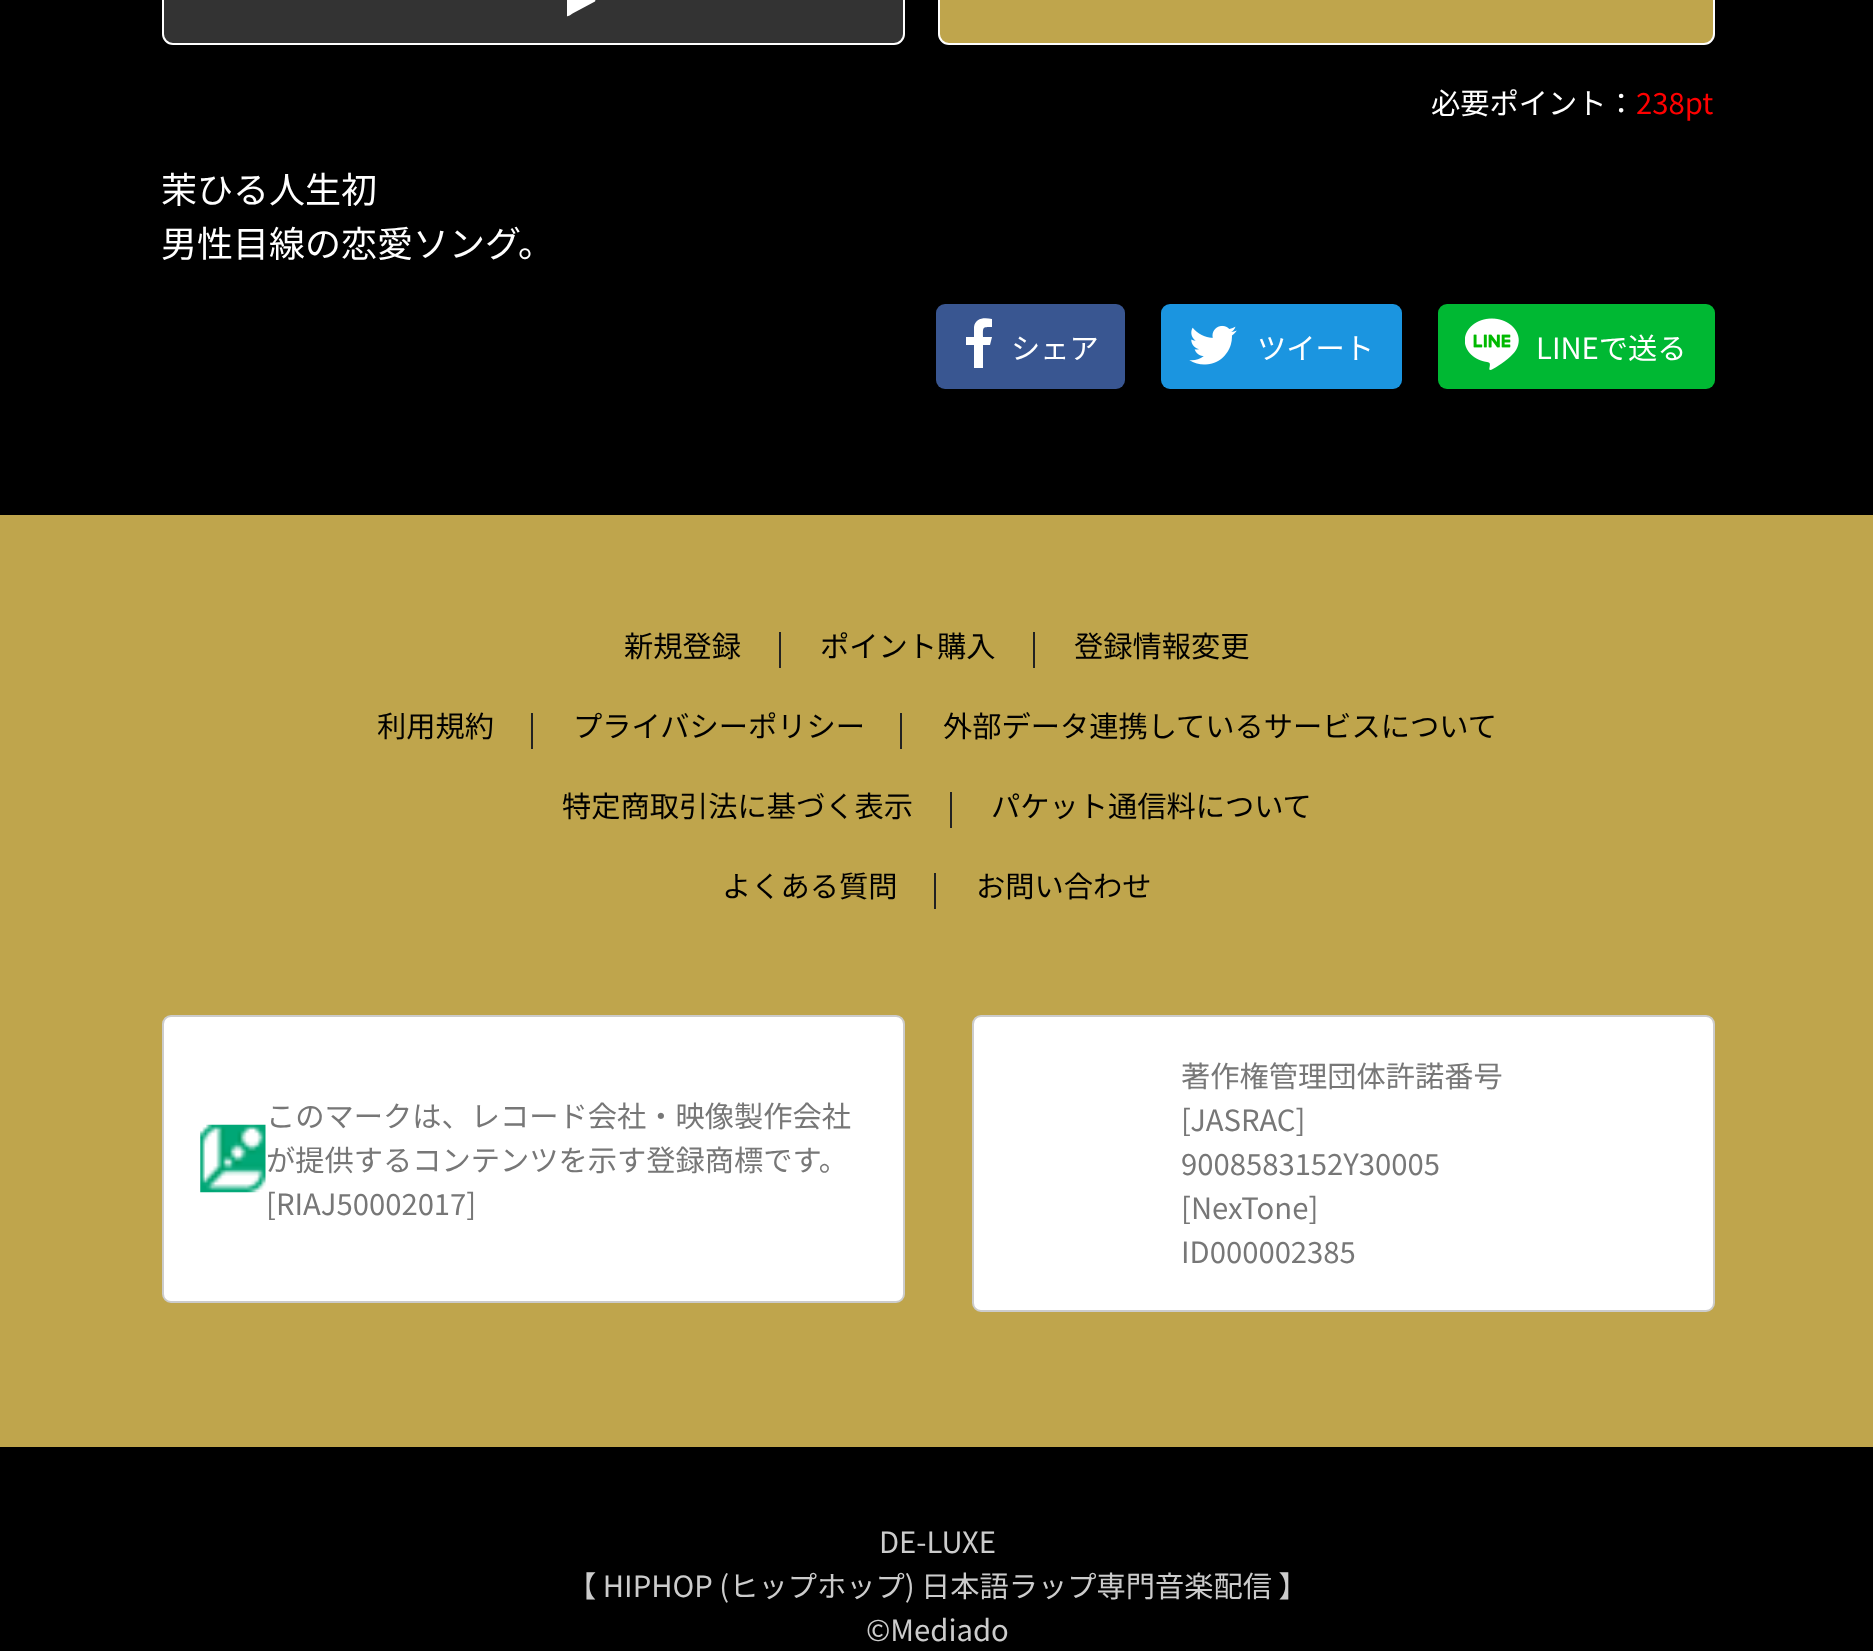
<svg xmlns="http://www.w3.org/2000/svg" width="1873" height="1651">
	<rect width="100%" height="100%" fill="#000000" />
	<rect x="163" y="-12" width="741" height="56" rx="10" fill="#333333" stroke="#FFFFFF" stroke-width="2" />
	<path d="M595 1.5L572.5 13.5C572 14 568 17 567 16V-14.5L567.5-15L595 0L595.5 .5Z" fill="#FFFFFF" />
	<rect x="939" y="-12" width="775" height="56" rx="10" fill="#BFA54C" stroke="#FFFFFF" stroke-width="2" />
	<text x="1431" y="114" font-family="Noto Sans JP" font-size="29.25" fill="#FFFFFF">必要ポイント：</text>
	<text x="1636" y="114" font-family="Noto Sans JP" font-size="29.25" fill="#FF0000">238pt</text>
	<g font-family="Noto Sans JP" font-size="36" fill="#FFFFFF">
		<text x="161" y="203">茉ひる人生初</text>
		<text x="161" y="257">男性目線の恋愛ソング。</text>
	</g>
	<rect x="936" y="304" width="189" height="85" rx="9" fill="#395691" />
	<path d="M992 319V327C982 327 983 327 983 337H992L990 345H983V368H974V345H966V337H974V327C975 318 984 317 992 319Z" fill="#FFFFFF" />
	<text x="1011" y="359" font-family="Noto Sans JP" font-size="29.25" fill="#FFFFFF">シェア</text>
	<rect x="1161" y="304" width="241" height="85" rx="9" fill="#1B95E0" />
	<image x="1189" y="325" width="48" height="40" href="assets/img1.png" />
	<text x="1257" y="359" font-family="Noto Sans JP" font-size="29.25" fill="#FFFFFF">ツイート</text>
	<rect x="1438" y="304" width="277" height="85" rx="9" fill="#00B833" />
	<image x="1465" y="318" width="54" height="52" href="assets/img2.png" />
	<text x="1536" y="359" font-family="Noto Sans JP" font-size="29.25" fill="#FFFFFF">LINEで送る</text>
	<rect x="0" y="515" width="1873" height="932" fill="#BFA54C" />
	<text x="624" y="657" font-family="Noto Sans JP" font-size="29.25" fill="#000000">新規登録</text>
	<rect x="779" y="632" width="2" height="36" fill="#222222" />
	<text x="820" y="657" font-family="Noto Sans JP" font-size="29.25" fill="#000000">ポイント購入</text>
	<rect x="1033" y="632" width="2" height="36" fill="#222222" />
	<g font-family="Noto Sans JP" font-size="29.25" fill="#000000">
		<text x="1074" y="657">登録情報変更</text>
		<text x="377" y="737">利用規約</text>
	</g>
	<rect x="531" y="713" width="2" height="36" fill="#222222" />
	<text x="573" y="737" font-family="Noto Sans JP" font-size="29.25" fill="#000000">プライバシーポリシー</text>
	<rect x="900" y="713" width="2" height="36" fill="#222222" />
	<g font-family="Noto Sans JP" font-size="29.25" fill="#000000">
		<text x="943" y="737">外部データ連携しているサービスについて</text>
		<text x="562" y="817">特定商取引法に基づく表示</text>
	</g>
	<rect x="950" y="792" width="2" height="36" fill="#222222" />
	<g font-family="Noto Sans JP" font-size="29.25" fill="#000000">
		<text x="991" y="817">パケット通信料について</text>
		<text x="722" y="897">よくある質問</text>
	</g>
	<rect x="934" y="873" width="2" height="36" fill="#222222" />
	<text x="976" y="897" font-family="Noto Sans JP" font-size="29.25" fill="#000000">お問い合わせ</text>
	<rect x="163" y="1016" width="741" height="286" rx="8" fill="#FFFFFF" stroke="#CCCCCC" stroke-width="2" />
	<image x="200" y="1124" width="66" height="69" href="assets/img3.png" />
	<g font-family="Noto Sans JP" font-size="29.25" fill="#777777">
		<text x="266" y="1127">このマークは、レコード会社・映像製作会社</text>
		<text x="266" y="1171">が提供するコンテンツを示す登録商標です。</text>
		<text x="266" y="1215">[RIAJ50002017]</text>
	</g>
	<rect x="973" y="1016" width="741" height="295" rx="8" fill="#FFFFFF" stroke="#CCCCCC" stroke-width="2" />
	<g font-family="Noto Sans JP" font-size="29.25" fill="#777777">
		<text x="1181" y="1087">著作権管理団体許諾番号</text>
		<text x="1181" y="1131">[JASRAC]</text>
		<text x="1181" y="1175">9008583152Y30005</text>
		<text x="1181" y="1219">[NexTone]</text>
		<text x="1181" y="1263">ID000002385</text>
	</g>
	<g font-family="Noto Sans JP" font-size="29.25" fill="#CCCCCC">
		<text x="879" y="1553">DE-LUXE</text>
		<text x="567" y="1597">【 HIPHOP (ヒップホップ) 日本語ラップ専門音楽配信 】</text>
		<text x="866" y="1641">©Mediado</text>
	</g>
</svg>
